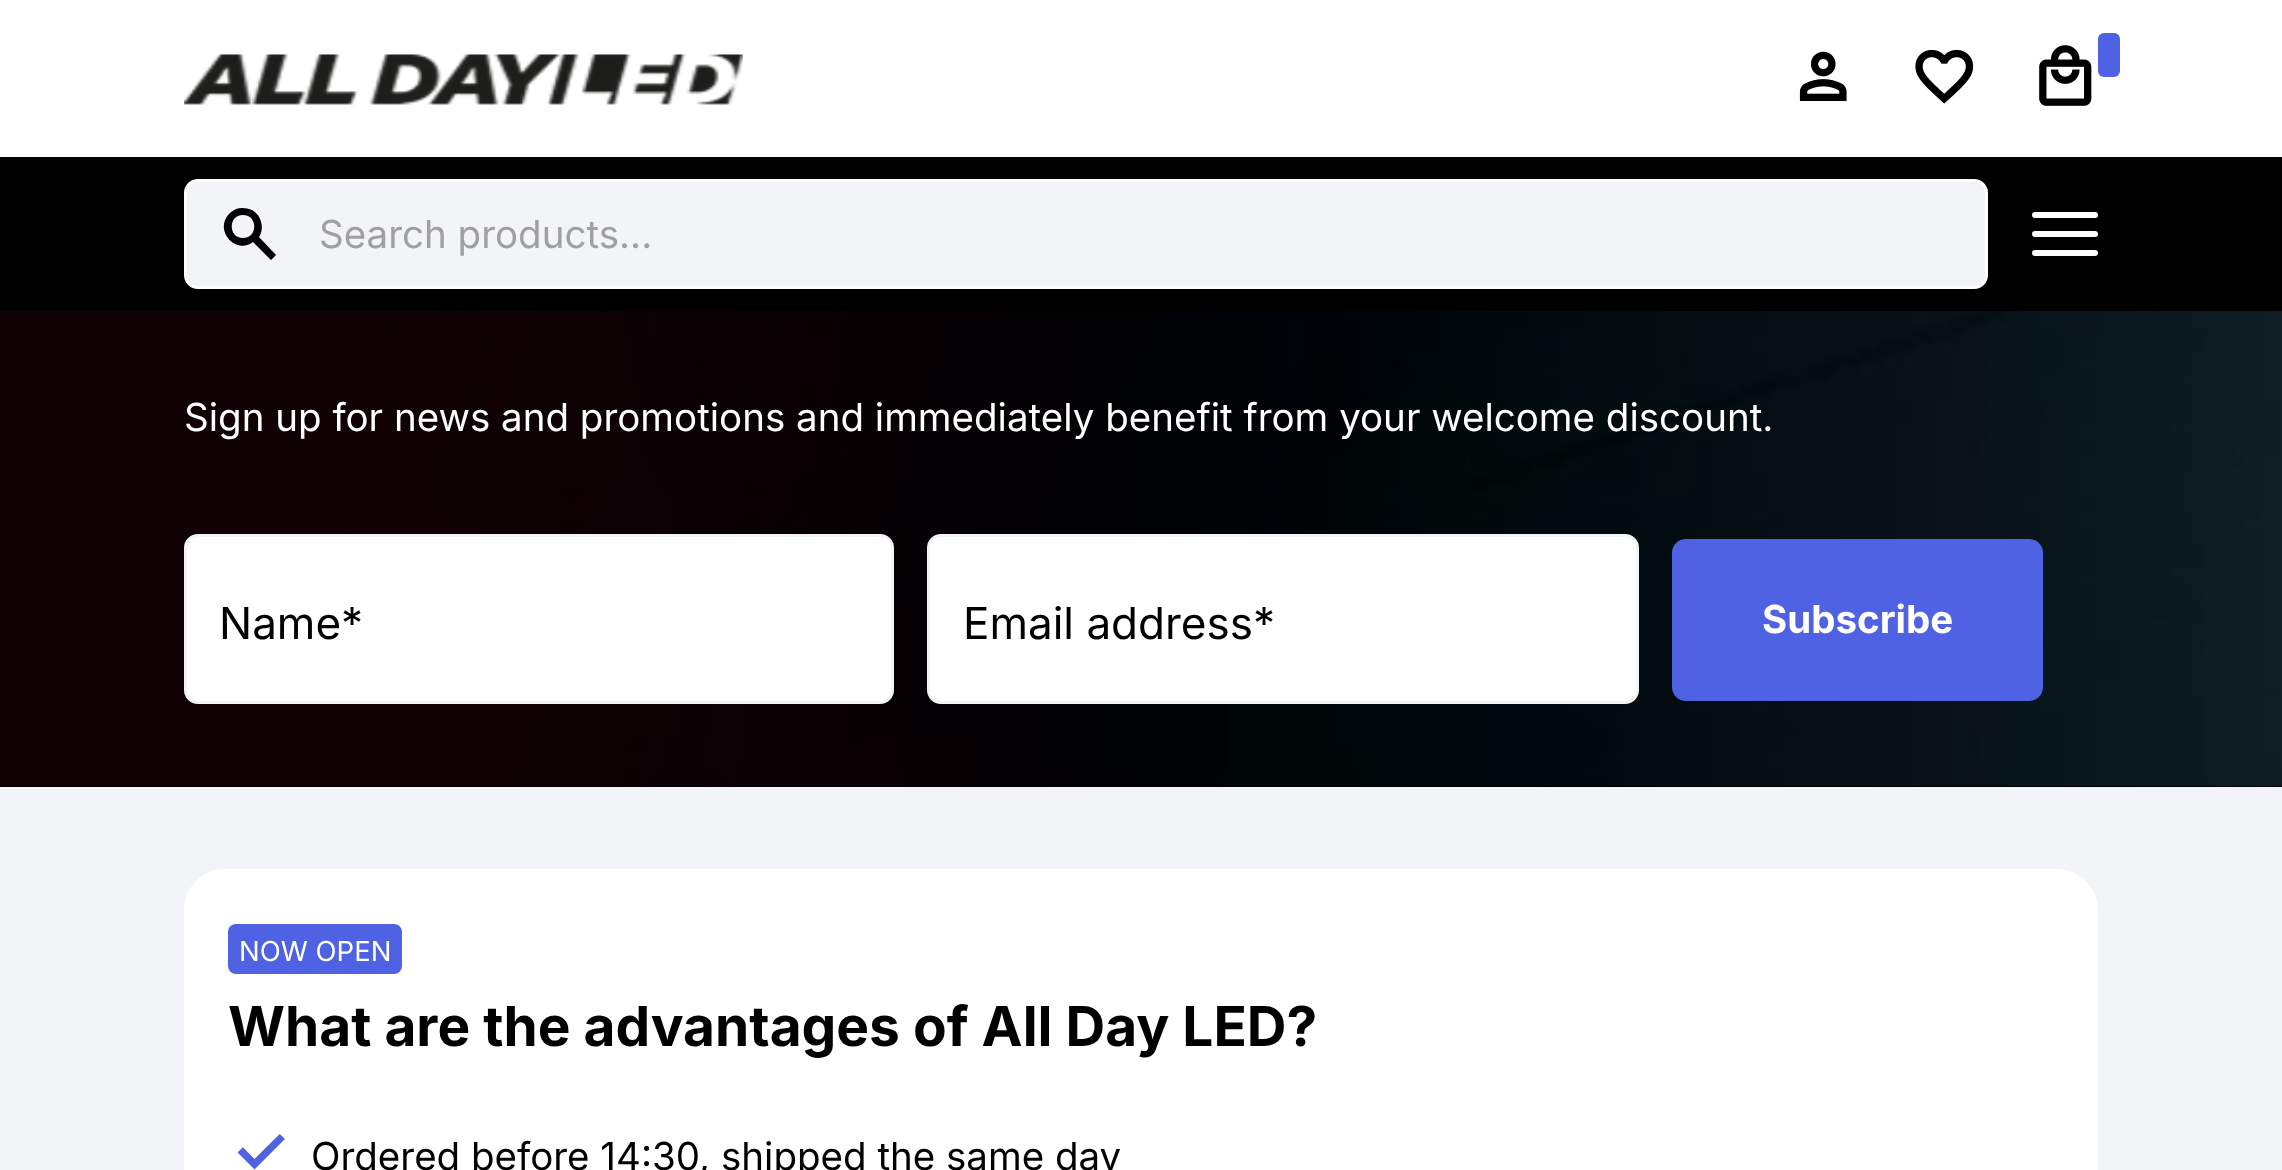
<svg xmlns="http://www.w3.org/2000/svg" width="2282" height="1170">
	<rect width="100%" height="100%" fill="#000000" />
	<rect x="0" y="0" width="2282" height="157" fill="#FFFFFF" />
	<image x="184" y="54" width="559" height="51" href="assets/img1.png" />
	<image x="1799" y="51" width="48" height="50" href="assets/img2.png" />
	<image x="1915" y="49" width="59" height="55" href="assets/img3.png" />
	<image x="2039" y="45" width="53" height="61" href="assets/img4.png" />
	<rect x="2098" y="33" width="22" height="44" rx="6" fill="#4F62E4" />
	<rect x="185.5" y="180.5" width="1801" height="107" rx="12.5" fill="#F3F4F7" stroke="#FFFFFF" stroke-width="3" />
	<path d="M271 260L253 242C238 254 217 235 226 218C228 214 232 211 236 209C241 207 247 208 252 210C261 215 265 228 259 237L276 255ZM243 238C258 238 258 215 243 215C228 215 228 238 243 238Z" fill="#000000" />
	<text x="319" y="248" font-family="Inter" font-size="38.5" fill="#A0A0A0">Search products...</text>
	<rect x="2032" y="212" width="66" height="6" rx="3" fill="#FFFFFF" />
	<rect x="2032" y="231" width="66" height="6" rx="3" fill="#FFFFFF" />
	<rect x="2032" y="250" width="66" height="6" rx="3" fill="#FFFFFF" />
	<image x="0" y="311" width="2282" height="475" href="assets/img5.png" />
	<text x="184" y="431" font-family="Inter" font-size="38.5" fill="#FFFFFF">Sign up for news and promotions and immediately benefit from your welcome discount.</text>
	<rect x="185.5" y="535.5" width="707" height="167" rx="12.5" fill="#FFFFFF" stroke="#F2F4F7" stroke-width="3" />
	<text x="219" y="639" font-family="Inter" font-size="44" fill="#000000">Name*</text>
	<rect x="928.5" y="535.5" width="709" height="167" rx="12.5" fill="#FFFFFF" stroke="#F2F4F7" stroke-width="3" />
	<text x="963" y="639" font-family="Inter" font-size="44" fill="#000000">Email address*</text>
	<rect x="1673.5" y="540.5" width="368" height="159" rx="12.5" fill="#4F62E4" stroke="#4F62E4" stroke-width="3" />
	<text x="1762" y="633" font-family="Inter" font-size="38.5" font-weight="700" fill="#FFFFFF">Subscribe</text>
	<rect x="0" y="787" width="2282" height="383" fill="#F3F4F7" />
	<rect x="184" y="869" width="1914" height="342" rx="41" fill="#FFFFFF" />
	<rect x="228" y="924" width="174" height="50" rx="8" fill="#4F62E4" />
	<text x="239" y="961" font-family="Inter" font-size="27.5" fill="#FFFFFF">NOW OPEN</text>
	<text x="228" y="1046" font-family="Inter" font-size="55" font-weight="700" fill="#000000">What are the advantages of All Day LED?</text>
	<image x="237" y="1134" width="48" height="36" href="assets/img6.png" />
	<text x="311" y="1170" font-family="Inter" font-size="38.5" fill="#000000">Ordered before 14:30, shipped the same day</text>
</svg>
